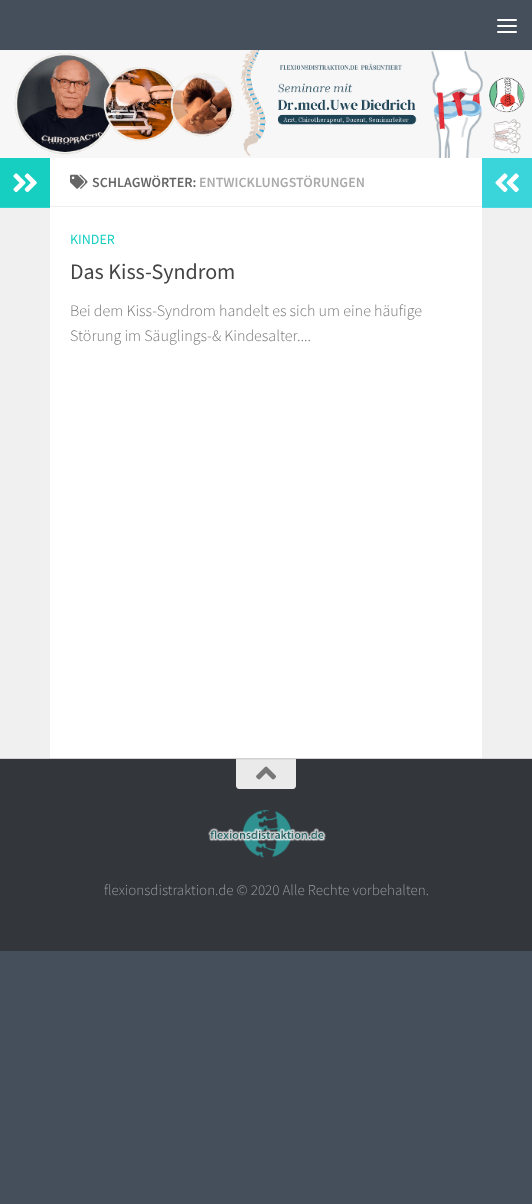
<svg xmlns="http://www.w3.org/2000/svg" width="532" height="1204">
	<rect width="100%" height="100%" fill="#454F5C" />
	<rect x="497" y="19" width="20" height="2" rx="1" fill="#FFFFFF" />
	<rect x="497" y="25" width="20" height="2" rx="1" fill="#FFFFFF" />
	<rect x="497" y="31" width="20" height="2" rx="1" fill="#FFFFFF" />
	<rect x="0" y="758" width="532" height="1" fill="#EAEAEA" />
	<rect x="0" y="159" width="532" height="600" fill="#000000" fill-opacity="0.1" filter="blur(0.5px)" />
	<image x="0" y="50" width="532" height="108" href="assets/img1.png" />
	<rect x="50" y="158" width="432" height="600" fill="#FFFFFF" />
	<rect x="0" y="208" width="50" height="550" fill="#F0F0F0" />
	<rect x="0" y="158" width="50" height="49" fill="#16CFC1" />
	<rect x="0" y="207" width="50" height="1" fill="#2DD4C7" />
	<image x="13" y="173" width="24" height="20" href="assets/img2.png" />
	<rect x="50" y="206" width="432" height="1" fill="#EEEEEE" />
	<image x="70" y="174" width="18" height="15" href="assets/img3.png" />
	<text x="92" y="187" font-family="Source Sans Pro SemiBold" font-size="14" font-weight="600" fill="#666666">SCHLAGWÖRTER:</text>
	<text x="199" y="187" font-family="Source Sans Pro SemiBold" font-size="14" font-weight="600" fill="#AAAAAA">ENTWICKLUNGSTÖRUNGEN</text>
	<text x="70" y="244" font-family="Source Sans Pro" font-size="14" fill="#16CFC1">KINDER</text>
	<text x="70" y="279" font-family="Source Sans Pro" font-size="22" fill="#444444">Das Kiss-Syndrom</text>
	<g font-family="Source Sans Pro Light" font-size="16" font-weight="300" fill="#767676">
		<text x="70" y="316">Bei dem Kiss-Syndrom handelt es sich um eine häufige</text>
		<text x="70" y="341">Störung im Säuglings-&amp; Kindesalter....</text>
	</g>
	<rect x="482" y="158" width="50" height="49" fill="#39D5DB" />
	<rect x="482" y="207" width="50" height="1" fill="#4DD9DF" />
	<image x="495" y="173" width="24" height="20" href="assets/img4.png" />
	<rect x="482" y="208" width="50" height="550" fill="#F0F0F0" />
	<rect x="0" y="759" width="532" height="192" fill="#33363B" />
	<path d="M236 759H296V786C296 787.5 294.5 789 293 789H239C237.5 789 236 787.5 236 786Z" fill="#EAEAEA" />
	<rect x="236" y="759" width="60" height="1" fill="#DEDEDE" />
	<image x="256" y="766" width="20" height="14" href="assets/img5.png" />
	<image x="208" y="809" width="118" height="49" href="assets/img6.png" />
	<text x="104" y="895" font-family="Source Sans Pro Light" font-size="15" font-weight="300" fill="#999B9D">flexionsdistraktion.de © 2020 Alle Rechte vorbehalten.</text>
</svg>
